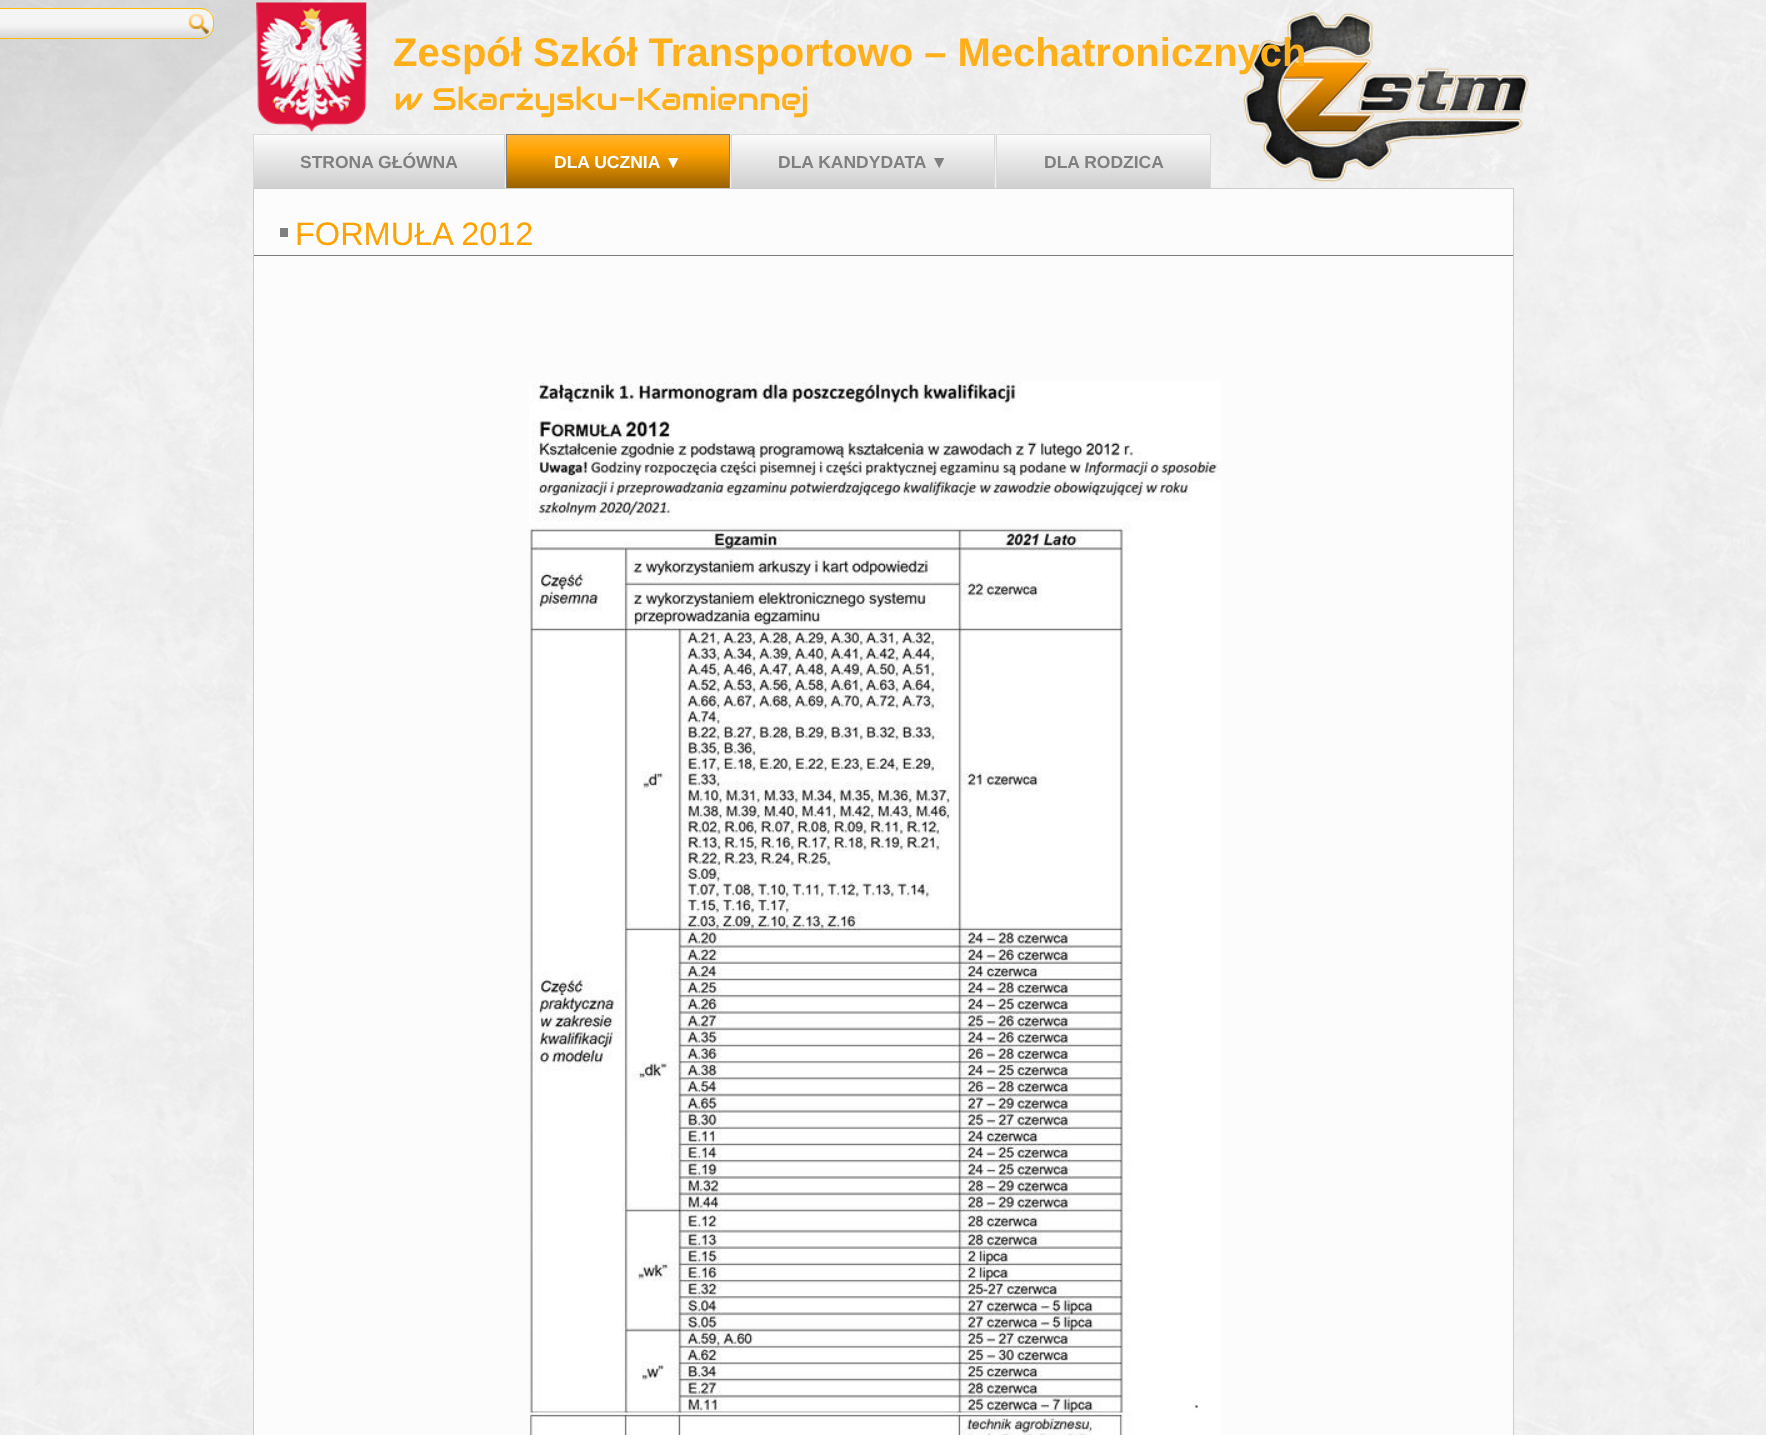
<svg xmlns="http://www.w3.org/2000/svg" width="1766" height="1435">
	<defs>
		<clipPath id="clip1"><rect x="-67" y="8" width="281" height="31" rx="13" /></clipPath>
		<linearGradient id="g1" gradientUnits="userSpaceOnUse" x1="73" y1="9" x2="73" y2="38"><stop offset="0" stop-color="#F5F5F5" /><stop offset="0.5" stop-color="#F5F5F5" /><stop offset="0.6" stop-color="#F2F2F2" /><stop offset="1" stop-color="#D6D6D6" /></linearGradient>
		<linearGradient id="g2" gradientUnits="userSpaceOnUse" x1="379" y1="134" x2="379" y2="188"><stop offset="0" stop-color="#FCFCFC" /><stop offset="1" stop-color="#CFCFCF" /></linearGradient>
		<linearGradient id="g3" gradientUnits="userSpaceOnUse" x1="618" y1="134" x2="618" y2="188"><stop offset="0" stop-color="#FFB433" /><stop offset="0.33" stop-color="#FFA200" /><stop offset="1" stop-color="#996100" /></linearGradient>
		<linearGradient id="g4" gradientUnits="userSpaceOnUse" x1="863" y1="134" x2="863" y2="188"><stop offset="0" stop-color="#FCFCFC" /><stop offset="1" stop-color="#CFCFCF" /></linearGradient>
		<linearGradient id="g5" gradientUnits="userSpaceOnUse" x1="1104" y1="134" x2="1104" y2="188"><stop offset="0" stop-color="#FCFCFC" /><stop offset="1" stop-color="#CFCFCF" /></linearGradient>
	</defs>
	<rect width="100%" height="100%" fill="#F5F5F5" />
	<image x="0" y="0" width="1766" height="1435" href="assets/img1.png" />
	<g clip-path="url(#clip1)">
		<rect x="0" y="9" width="213" height="29" fill="url(#g1)" />
	</g>
	<rect x="-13.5" y="8.5" width="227" height="30" rx="12.5" fill="none" stroke="#FFBB00" />
	<image x="188" y="13" width="21" height="21" href="assets/img2.png" />
	<image x="256" y="2" width="111" height="130" href="assets/img3.png" />
	<image x="1243" y="12" width="286" height="170" href="assets/img4.png" />
	<text x="393" y="66" font-family="Liberation Sans" font-size="40" font-weight="700" fill="#FFAF1A">Zespół Szkół Transportowo – Mechatronicznych</text>
	<text x="394" y="110" font-family="Audiowide" font-size="31.25" fill="#FFAF1A">w Skarżysku-Kamiennej</text>
	<rect x="254" y="135" width="250" height="53" fill="url(#g2)" />
	<rect x="253" y="134" width="252" height="1" fill="#D9D9D9" />
	<rect x="504" y="134" width="1" height="54" fill="#D9D9D9" />
	<rect x="253" y="134" width="1" height="54" fill="#D9D9D9" />
	<text x="300" y="168" font-family="Liberation Sans" font-size="17.5" font-weight="700" fill="#808080">STRONA GŁÓWNA</text>
	<rect x="507" y="135" width="222" height="53" fill="url(#g3)" />
	<rect x="506" y="134" width="224" height="1" fill="#808080" />
	<rect x="729" y="134" width="1" height="54" fill="#808080" />
	<rect x="506" y="134" width="1" height="54" fill="#808080" />
	<text x="554" y="168" font-family="Liberation Sans" font-size="17.5" font-weight="700" fill="#FFFFFF">DLA UCZNIA ▼</text>
	<rect x="732" y="135" width="262" height="53" fill="url(#g4)" />
	<rect x="731" y="134" width="264" height="1" fill="#D9D9D9" />
	<rect x="994" y="134" width="1" height="54" fill="#D9D9D9" />
	<rect x="731" y="134" width="1" height="54" fill="#D9D9D9" />
	<text x="778" y="168" font-family="Liberation Sans" font-size="17.5" font-weight="700" fill="#808080">DLA KANDYDATA ▼</text>
	<rect x="997" y="135" width="213" height="53" fill="url(#g5)" />
	<rect x="996" y="134" width="215" height="1" fill="#D9D9D9" />
	<rect x="1210" y="134" width="1" height="54" fill="#D9D9D9" />
	<rect x="996" y="134" width="1" height="54" fill="#D9D9D9" />
	<text x="1044" y="168" font-family="Liberation Sans" font-size="17.5" font-weight="700" fill="#808080">DLA RODZICA</text>
	<rect x="253.5" y="188.5" width="1260" height="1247" fill="#FCFCFC" stroke="#CCCCCC" />
	<rect x="254" y="255" width="1259" height="1" fill="#7A7A7A" />
	<rect x="280" y="228" width="8" height="9" fill="#808080" />
	<text x="295" y="245" font-family="Liberation Sans" font-size="32.5" fill="#FFA200">FORMUŁA 2012</text>
	<image x="529" y="381" width="692" height="1054" href="assets/img5.png" />
</svg>
